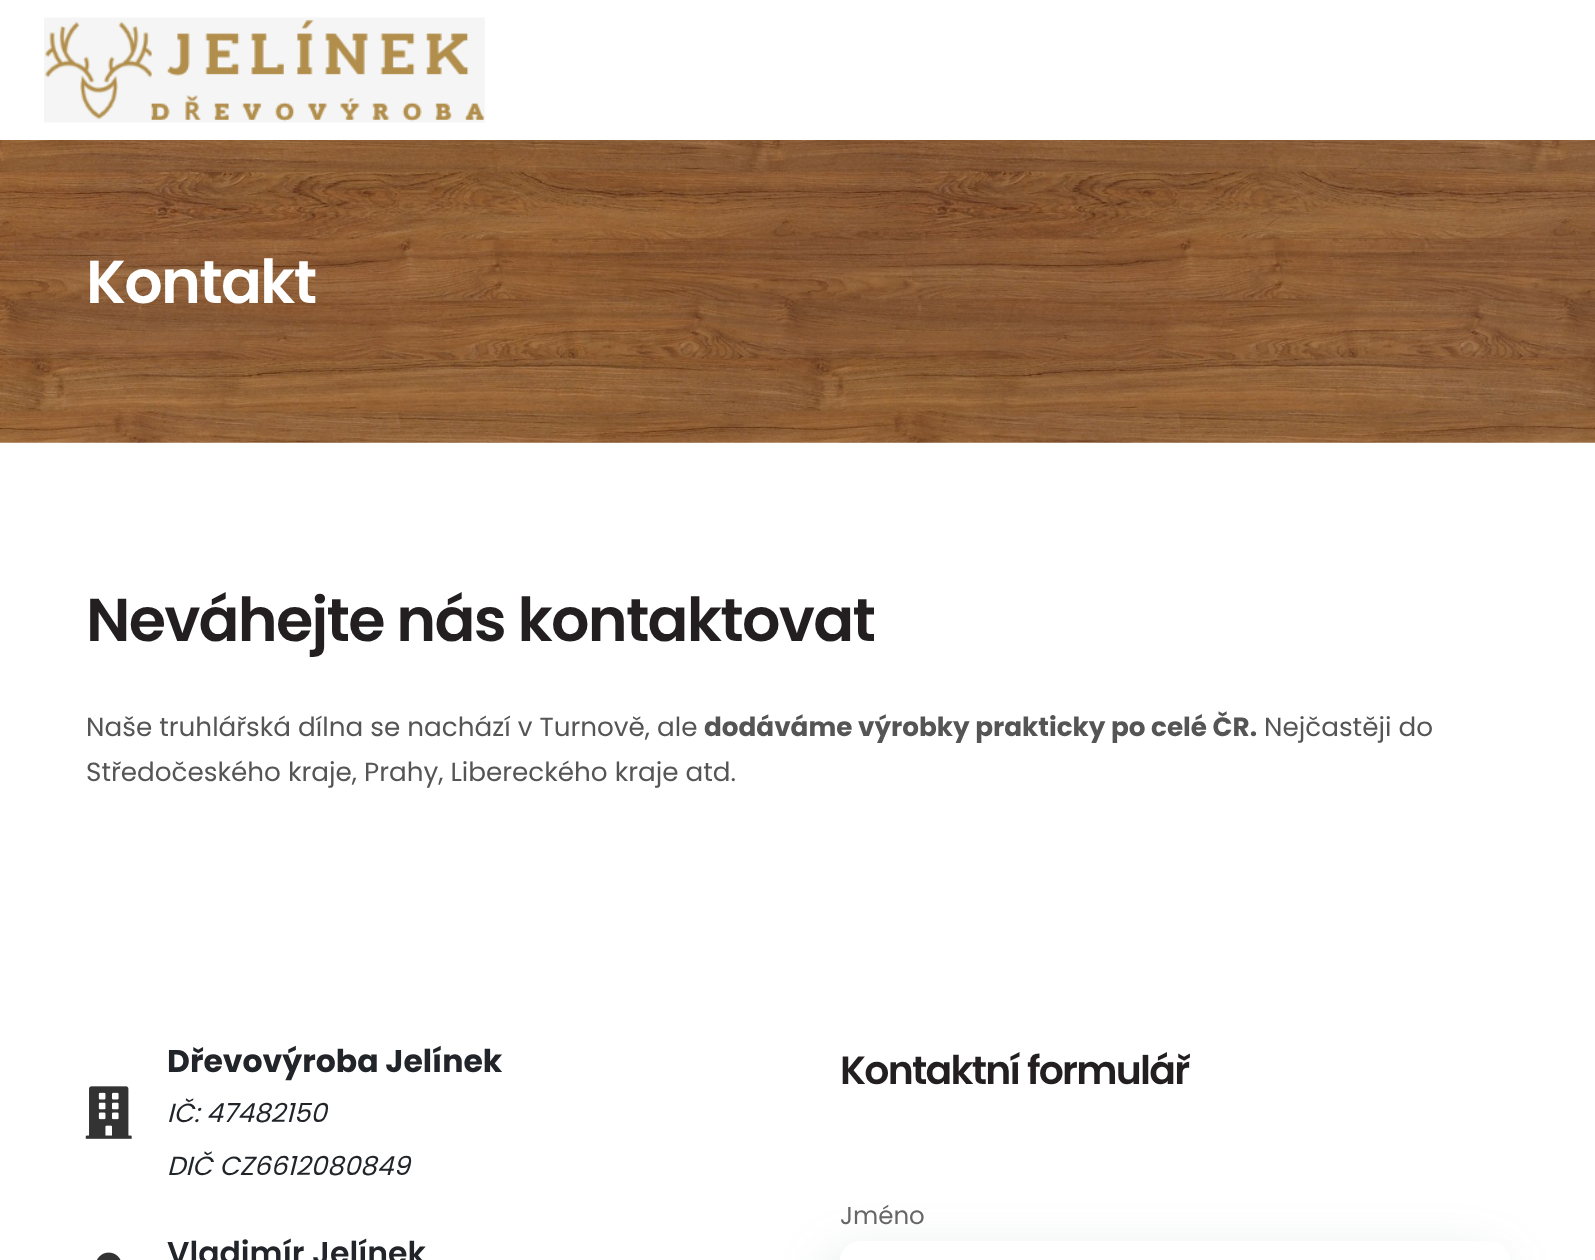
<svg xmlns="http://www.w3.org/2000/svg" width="1595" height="1260">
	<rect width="100%" height="100%" fill="#FFFFFF" />
	<image x="44" y="17" width="441" height="106" href="assets/img1.png" />
	<image x="0" y="140" width="1595" height="303" href="assets/img2.png" />
	<text x="86" y="303" font-family="Poppins" font-size="60.4" font-weight="600" letter-spacing="-1.75" fill="#FFFFFF">Kontakt</text>
	<text x="86" y="641" font-family="Poppins" font-size="60.4" font-weight="600" letter-spacing="-1.75" fill="#231F20">Neváhejte nás kontaktovat</text>
	<text x="86" y="736" font-family="Poppins" font-size="26.25" fill="#555555">Naše truhlářská dílna se nachází v Turnově, ale</text>
	<text x="704" y="736" font-family="Poppins" font-size="26.25" font-weight="700" fill="#555555">dodáváme výrobky prakticky po celé ČR.</text>
	<g font-family="Poppins" font-size="26.25" fill="#555555">
		<text x="1264" y="736">Nejčastěji do</text>
		<text x="86" y="781">Středočeského kraje, Prahy, Libereckého kraje atd.</text>
	</g>
	<image x="85" y="1086" width="47" height="53" href="assets/img3.png" />
	<text x="167" y="1072" font-family="Poppins" font-size="31.5" font-weight="700" fill="#212529">Dřevovýroba Jelínek</text>
	<g font-family="Poppins" font-size="26.25" font-style="italic" fill="#212529">
		<text x="167" y="1122">IČ: 47482150</text>
		<text x="167" y="1175">DIČ CZ6612080849</text>
	</g>
	<image x="97" y="1252" width="24" height="8" href="assets/img4.png" />
	<text x="167" y="1264" font-family="Poppins" font-size="31.5" font-weight="600" fill="#212529">Vladimír Jelínek</text>
	<text x="840" y="1084" font-family="Poppins" font-size="39.4" font-weight="600" letter-spacing="-1.75" fill="#231F20">Kontaktní formulář</text>
	<rect x="830" y="1258" width="670" height="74" rx="21" fill="#6D7E85" fill-opacity="0.2" filter="blur(26px)" />
	<rect x="840" y="1241" width="670" height="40" rx="21" fill="#FFFFFF" />
	<text x="840" y="1224" font-family="Poppins" font-size="24.5" fill="#666666">Jméno</text>
</svg>
